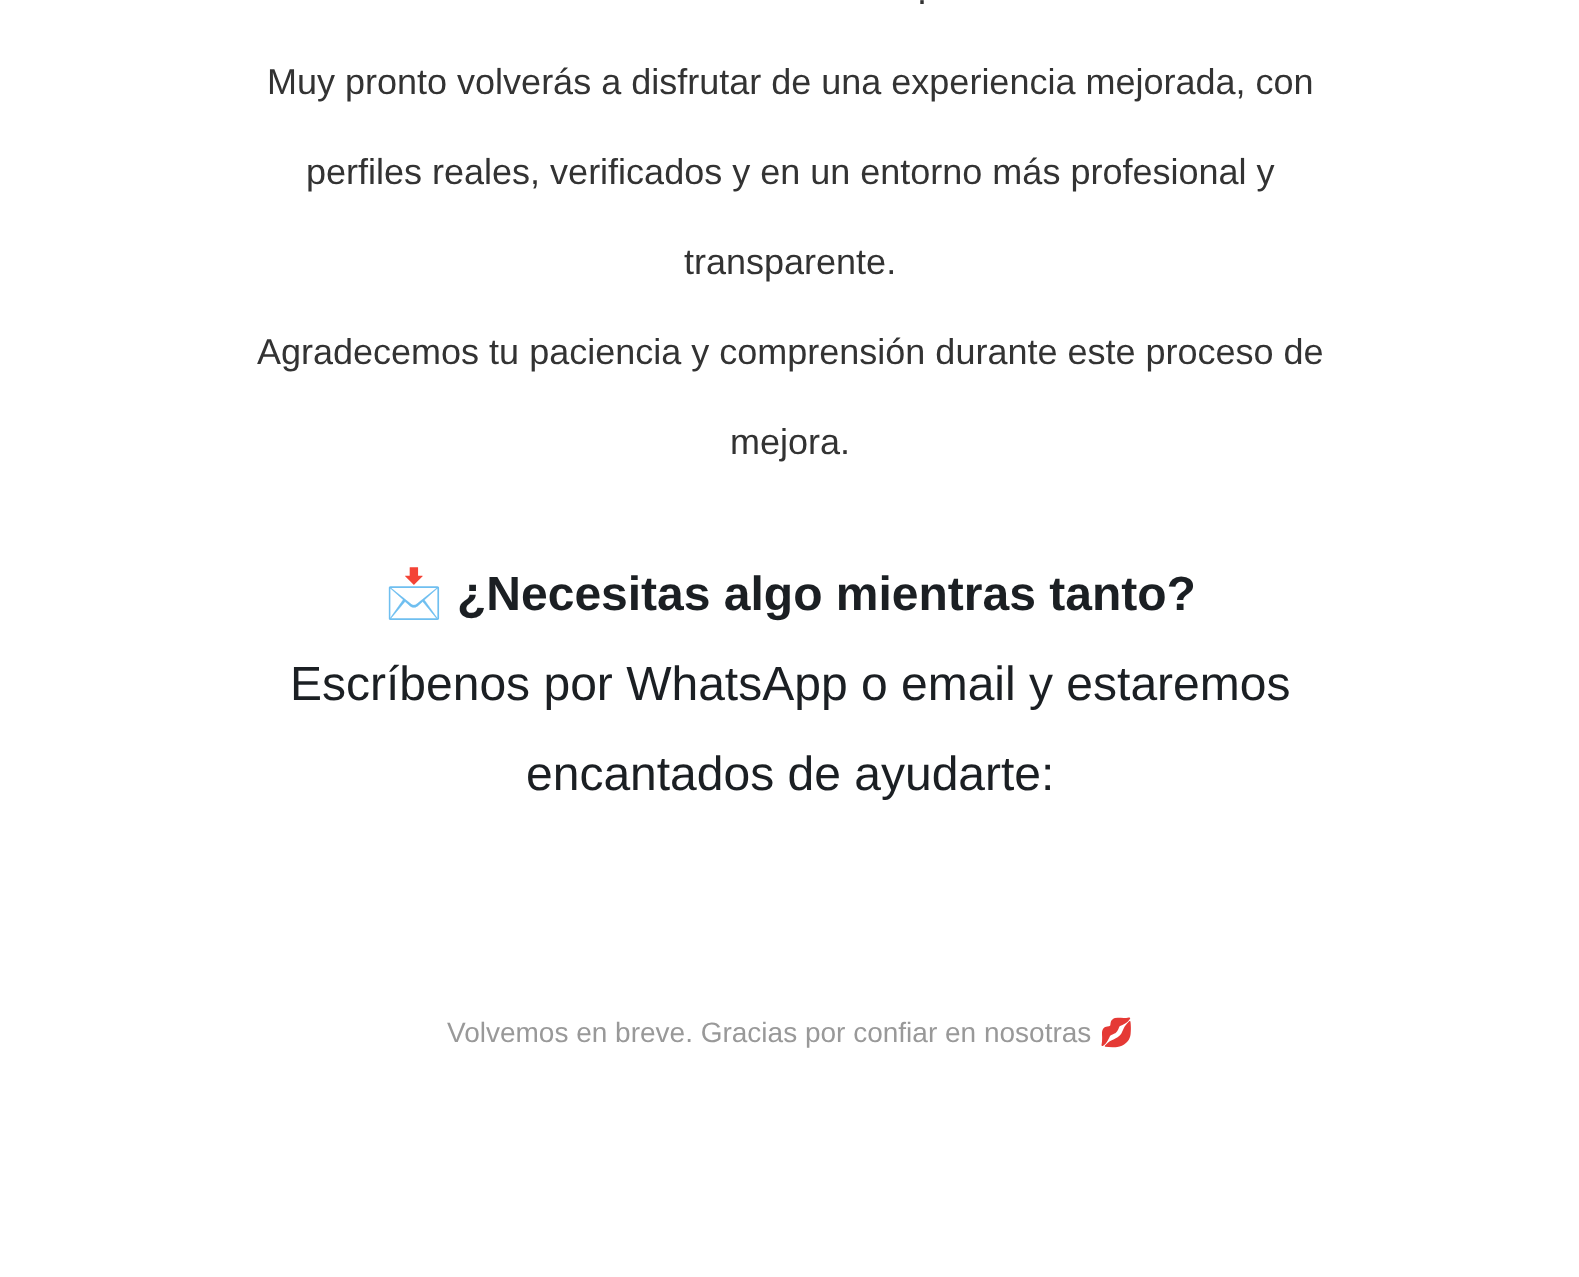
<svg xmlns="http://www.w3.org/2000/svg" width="1579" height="1277">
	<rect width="100%" height="100%" fill="#FFFFFF" />
	<g font-family="Liberation Sans" font-size="36" fill="#333333">
		<text x="917" y="4">.</text>
		<text x="267" y="94">Muy pronto volverás a disfrutar de una experiencia mejorada, con</text>
		<text x="306" y="184">perfiles reales, verificados y en un entorno más profesional y</text>
		<text x="684" y="274">transparente.</text>
		<text x="257" y="364">Agradecemos tu paciencia y comprensión durante este proceso de</text>
		<text x="730" y="454">mejora.</text>
	</g>
	<text x="384" y="610" font-family="Noto Color Emoji" font-size="48" fill="#1B1F23">📩</text>
	<text x="457" y="610" font-family="Liberation Sans" font-size="48" font-weight="700" fill="#1B1F23">¿Necesitas algo mientras tanto?</text>
	<g font-family="Liberation Sans" font-size="48" fill="#1B1F23">
		<text x="290" y="700">Escríbenos por WhatsApp o email y estaremos</text>
		<text x="526" y="790">encantados de ayudarte:</text>
	</g>
	<text x="447" y="1042" font-family="Liberation Sans" font-size="28" fill="#999999">Volvemos en breve. Gracias por confiar en nosotras</text>
	<text x="1099" y="1042" font-family="Noto Color Emoji" font-size="28" fill="#999999">💋</text>
</svg>
